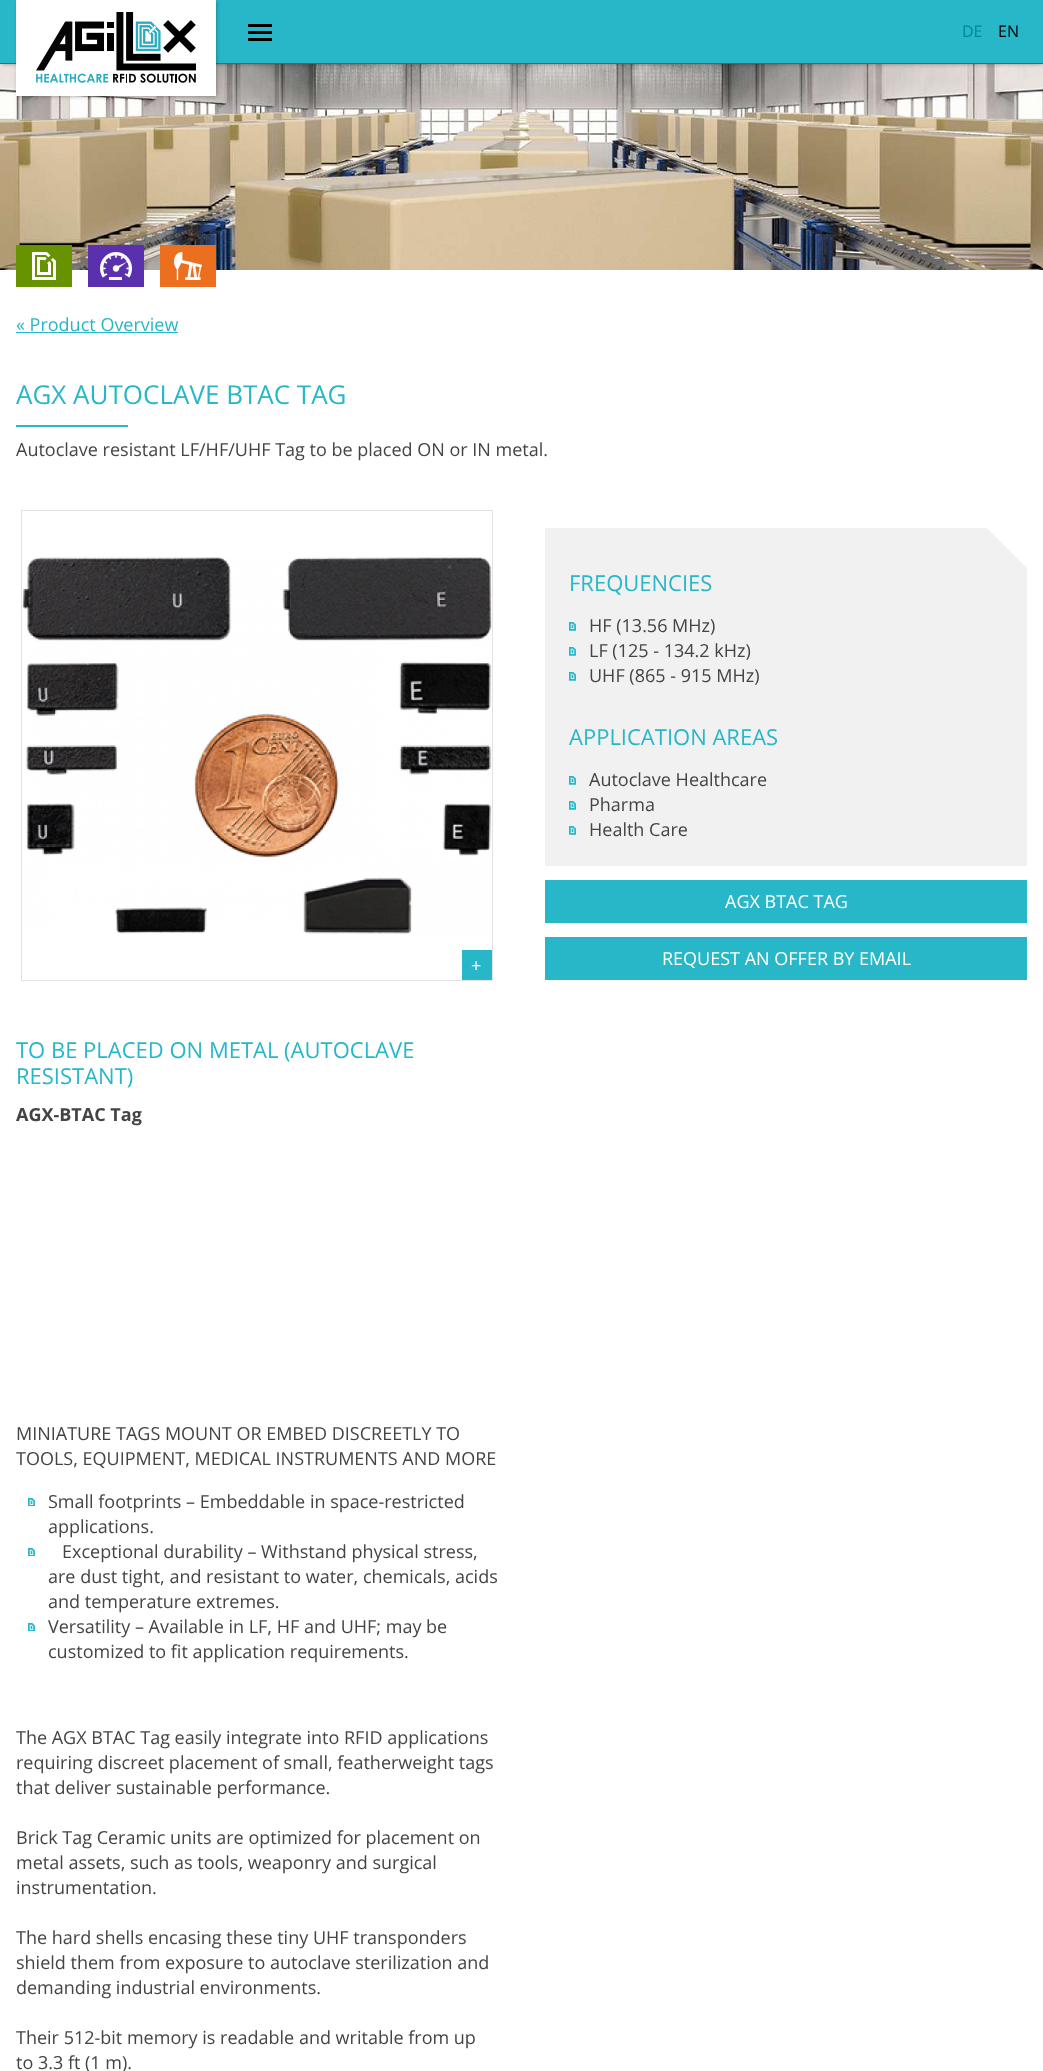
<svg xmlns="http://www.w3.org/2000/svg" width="1043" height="2071">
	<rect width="100%" height="100%" fill="#FFFFFF" />
	<image x="0" y="64" width="1043" height="206" href="assets/img2.png" />
	<rect x="2" y="2" width="1041" height="62" fill="#000000" fill-opacity="0.4" filter="blur(2px)" />
	<rect x="0" y="0" width="1043" height="63" fill="#27B7C8" />
	<rect x="0" y="63" width="1043" height="1" fill="#008797" />
	<rect x="18" y="2" width="198" height="94" fill="#000000" fill-opacity="0.4" filter="blur(2px)" />
	<rect x="16" y="0" width="200" height="96" fill="#FFFFFF" />
	<image x="36" y="12" width="160" height="71" href="assets/img1.png" />
	<rect x="248" y="24" width="24" height="3" fill="#000000" />
	<rect x="248" y="31" width="24" height="3" fill="#000000" />
	<rect x="248" y="38" width="24" height="3" fill="#000000" />
	<text x="962" y="37" font-family="Open Sans" font-size="16" fill="#008797">DE</text>
	<text x="998" y="37" font-family="Open Sans" font-size="16" fill="#000000">EN</text>
	<rect x="16" y="245" width="56" height="42" fill="#689300" />
	<image x="32" y="252" width="24" height="28" href="assets/img3.png" />
	<rect x="88" y="245" width="56" height="42" fill="#5A30AE" />
	<image x="100" y="252" width="32" height="28" href="assets/img4.png" />
	<rect x="160" y="245" width="56" height="42" fill="#EB6F1E" />
	<image x="174" y="252" width="28" height="28" href="assets/img5.png" />
	<text x="16" y="331" font-family="Open Sans" font-size="18" fill="#27B7C8">« Product Overview</text>
	<rect x="16" y="332" width="162" height="1" fill="#27B7C8" />
	<text x="16" y="404" font-family="Open Sans" font-size="26" fill="#27B7C8">AGX AUTOCLAVE BTAC TAG</text>
	<rect x="16" y="425" width="112" height="2" fill="#27B7C8" />
	<text x="16" y="456" font-family="Open Sans" font-size="18" fill="#444444">Autoclave resistant LF/HF/UHF Tag to be placed ON or IN metal.</text>
	<rect x="545" y="528" width="482" height="338" fill="#F1F1F1" />
	<path d="M1031 524V572L983 524Z" fill="#FFFFFF" />
	<text x="569" y="591" font-family="Open Sans" font-size="22" fill="#27B7C8">FREQUENCIES</text>
	<image x="569" y="622" width="7" height="9" href="assets/img6.png" />
	<text x="589" y="632" font-family="Open Sans" font-size="18" fill="#444444">HF (13.56 MHz)</text>
	<image x="569" y="647" width="7" height="9" href="assets/img6.png" />
	<text x="589" y="657" font-family="Open Sans" font-size="18" fill="#444444">LF (125 - 134.2 kHz)</text>
	<image x="569" y="672" width="7" height="9" href="assets/img6.png" />
	<text x="589" y="682" font-family="Open Sans" font-size="18" fill="#444444">UHF (865 - 915 MHz)</text>
	<text x="569" y="745" font-family="Open Sans" font-size="22" fill="#27B7C8">APPLICATION AREAS</text>
	<image x="569" y="776" width="7" height="9" href="assets/img6.png" />
	<text x="589" y="786" font-family="Open Sans" font-size="18" fill="#444444">Autoclave Healthcare</text>
	<image x="569" y="801" width="7" height="9" href="assets/img6.png" />
	<text x="589" y="811" font-family="Open Sans" font-size="18" fill="#444444">Pharma</text>
	<image x="569" y="826" width="7" height="9" href="assets/img6.png" />
	<text x="589" y="836" font-family="Open Sans" font-size="18" fill="#444444">Health Care</text>
	<rect x="545" y="880" width="482" height="43" fill="#27B7C8" />
	<text x="725" y="908" font-family="Open Sans" font-size="18" fill="#FFFFFF">AGX BTAC TAG</text>
	<rect x="545" y="937" width="482" height="43" fill="#27B7C8" />
	<text x="662" y="965" font-family="Open Sans" font-size="18" fill="#FFFFFF">REQUEST AN OFFER BY EMAIL</text>
	<rect x="21.5" y="510.5" width="471" height="470" fill="none" stroke="#E2E2E2" />
	<image x="22" y="557" width="470" height="377" href="assets/img7.png" />
	<rect x="462" y="950" width="30" height="30" fill="#27B7C8" />
	<text x="471" y="972" font-family="Open Sans" font-size="18" fill="#FFFFFF">+</text>
	<g font-family="Open Sans" font-size="22" fill="#27B7C8">
		<text x="16" y="1058">TO BE PLACED ON METAL (AUTOCLAVE</text>
		<text x="16" y="1084">RESISTANT)</text>
	</g>
	<text x="16" y="1121" font-family="Open Sans" font-size="18" font-weight="700" fill="#444444">AGX-BTAC Tag</text>
	<g font-family="Open Sans" font-size="18" fill="#444444">
		<text x="16" y="1440">MINIATURE TAGS MOUNT OR EMBED DISCREETLY TO</text>
		<text x="16" y="1465">TOOLS, EQUIPMENT, MEDICAL INSTRUMENTS AND MORE</text>
	</g>
	<image x="28" y="1498" width="7" height="8" href="assets/img8.png" />
	<g font-family="Open Sans" font-size="18" fill="#444444">
		<text x="48" y="1508">Small footprints – Embeddable in space-restricted</text>
		<text x="48" y="1533">applications.</text>
	</g>
	<image x="28" y="1548" width="7" height="8" href="assets/img8.png" />
	<g font-family="Open Sans" font-size="18" fill="#444444">
		<text x="62" y="1558">Exceptional durability – Withstand physical stress,</text>
		<text x="48" y="1583">are dust tight, and resistant to water, chemicals, acids</text>
		<text x="48" y="1608">and temperature extremes.</text>
	</g>
	<image x="28" y="1623" width="7" height="8" href="assets/img8.png" />
	<g font-family="Open Sans" font-size="18" fill="#444444">
		<text x="48" y="1633">Versatility – Available in LF, HF and UHF; may be</text>
		<text x="48" y="1658">customized to fit application requirements.</text>
		<text x="16" y="1744">The AGX BTAC Tag easily integrate into RFID applications</text>
		<text x="16" y="1769">requiring discreet placement of small, featherweight tags</text>
		<text x="16" y="1794">that deliver sustainable performance.</text>
		<text x="16" y="1844">Brick Tag Ceramic units are optimized for placement on</text>
		<text x="16" y="1869">metal assets, such as tools, weaponry and surgical</text>
		<text x="16" y="1894">instrumentation.</text>
		<text x="16" y="1944">The hard shells encasing these tiny UHF transponders</text>
		<text x="16" y="1969">shield them from exposure to autoclave sterilization and</text>
		<text x="16" y="1994">demanding industrial environments.</text>
		<text x="16" y="2044">Their 512-bit memory is readable and writable from up</text>
		<text x="16" y="2069">to 3.3 ft (1 m).</text>
	</g>
</svg>
